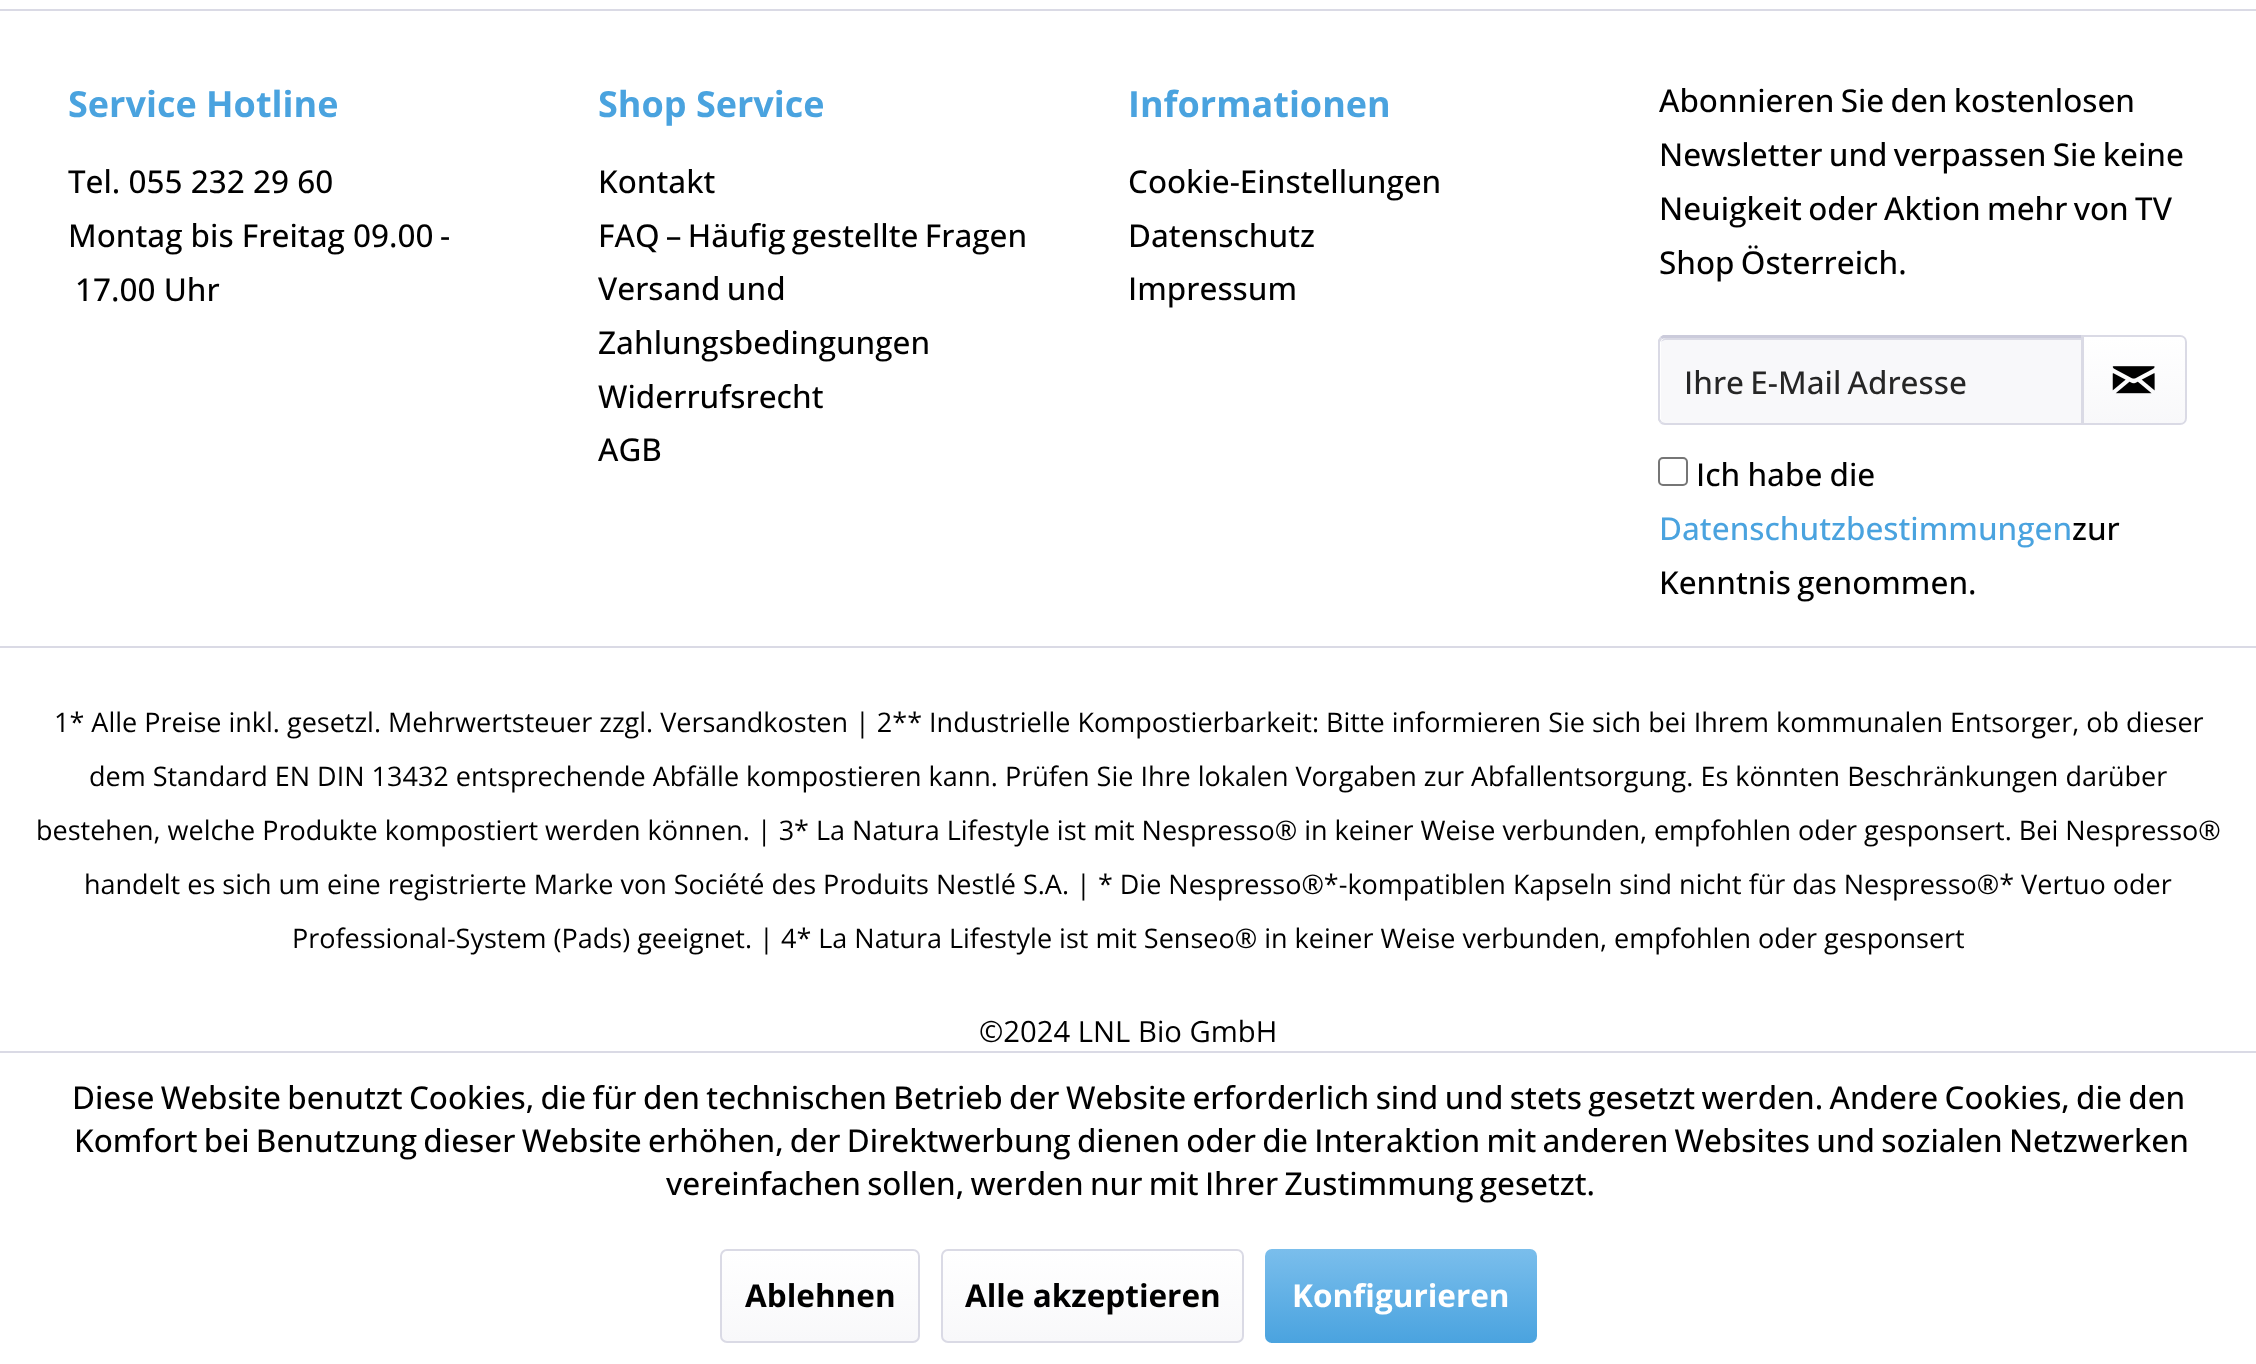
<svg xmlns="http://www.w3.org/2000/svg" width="2256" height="1364">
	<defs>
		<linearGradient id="g1" gradientUnits="userSpaceOnUse" x1="2134" y1="338" x2="2134" y2="423"><stop offset="0" stop-color="#FFFFFF" /><stop offset="1" stop-color="#F8F8FA" /></linearGradient>
		<linearGradient id="g2" gradientUnits="userSpaceOnUse" x1="820" y1="1251" x2="820" y2="1341"><stop offset="0" stop-color="#FFFFFF" /><stop offset="1" stop-color="#F8F8FA" /></linearGradient>
		<linearGradient id="g3" gradientUnits="userSpaceOnUse" x1="1092" y1="1251" x2="1092" y2="1341"><stop offset="0" stop-color="#FFFFFF" /><stop offset="1" stop-color="#F8F8FA" /></linearGradient>
		<linearGradient id="g4" gradientUnits="userSpaceOnUse" x1="1401" y1="1249" x2="1401" y2="1343"><stop offset="0" stop-color="#7ABEEC" /><stop offset="1" stop-color="#4AA3DF" /></linearGradient>
	</defs>
	<rect width="100%" height="100%" fill="#FFFFFF" />
	<rect x="0" y="9" width="2256" height="2" fill="#DADAE5" />
	<rect x="0" y="646" width="2256" height="2" fill="#DADAE5" />
	<text x="68" y="117" font-family="Open Sans" font-size="36" font-weight="700" fill="#4AA3DF">Service Hotline</text>
	<g font-family="Open Sans" font-size="31.5" font-weight="500" fill="#000000">
		<text x="68" y="193">Tel. 055 232 29 60</text>
		<text x="68" y="247">Montag bis Freitag 09.00</text>
		<text x="440" y="247">-</text>
		<text x="75" y="301">17.00 Uhr</text>
	</g>
	<text x="598" y="117" font-family="Open Sans" font-size="36" font-weight="700" fill="#4AA3DF">Shop Service</text>
	<g font-family="Open Sans" font-size="31.5" font-weight="500" fill="#000000">
		<text x="598" y="193">Kontakt</text>
		<text x="598" y="247" word-spacing="-1.9">FAQ – Häufig gestellte Fragen</text>
		<text x="598" y="300" word-spacing="-1.9">Versand und</text>
		<text x="598" y="354">Zahlungsbedingungen</text>
		<text x="598" y="408">Widerrufsrecht</text>
		<text x="598" y="461">AGB</text>
	</g>
	<text x="1128" y="117" font-family="Open Sans" font-size="36" font-weight="700" fill="#4AA3DF">Informationen</text>
	<g font-family="Open Sans" font-size="31.5" font-weight="500" fill="#000000">
		<text x="1128" y="193">Cookie-Einstellungen</text>
		<text x="1128" y="247">Datenschutz</text>
		<text x="1128" y="300">Impressum</text>
		<text x="1659" y="112" word-spacing="-1.9">Abonnieren Sie den kostenlosen</text>
		<text x="1659" y="166" word-spacing="-1.9">Newsletter und verpassen Sie keine</text>
		<text x="1659" y="220" word-spacing="-1.9">Neuigkeit oder Aktion mehr von TV</text>
		<text x="1659" y="274" word-spacing="-1.9">Shop Österreich.</text>
	</g>
	<path d="M1666 338H2081V423H1666C1663 423 1661 421 1661 418V343C1661 340 1663 338 1666 338Z" fill="#F8F8FA" />
	<path d="M1665 340H2081V338H1666C1664 338 1662 340 1661 342C1662 341 1664 340 1665 340Z" fill="#DADAE5" />
	<path d="M1665 338L1662 339L1660 337L1663 335H2084L2081 338Z" fill="#CBCBDB" />
	<path d="M2084 335V425L2081 423V338Z" fill="#DADAE5" />
	<path d="M2083 425H1665C1663 425 1661 424 1660 423L1662 422L1665 423H2081Z" fill="#DADAE5" />
	<path d="M1658 340L1660 337L1662 339L1660 342V419L1662 422L1660 423L1658 420Z" fill="#DADAE5" />
	<text x="1684" y="394" word-spacing="-1.9" font-family="Open Sans" font-size="31.5" font-weight="500" fill="#262626">Ihre E-Mail Adresse</text>
	<path d="M2084 338H2180C2183 338 2185 340 2185 343V418C2185 421 2183 423 2180 423H2084Z" fill="url(#g1)" />
	<path d="M2082 336H2180C2183.5 336 2186 338.5 2186 342V418C2186 421.5 2183.5 424 2180 424H2082Z" fill="none" stroke="#DADAE5" stroke-width="2" />
	<image x="2112" y="366" width="43" height="28" href="assets/img1.png" />
	<rect x="1659" y="458" width="28" height="27" rx="4" fill="none" stroke="#767676" stroke-width="2" />
	<text x="1696" y="486" word-spacing="-1" font-family="Open Sans" font-size="31.5" font-weight="500" fill="#000000">Ich habe die</text>
	<text x="1659" y="540" font-family="Open Sans" font-size="31.5" font-weight="500" fill="#4AA3DF">Datenschutzbestimmungen</text>
	<g font-family="Open Sans" font-size="31.5" font-weight="500" fill="#000000">
		<text x="2072" y="540">zur</text>
		<text x="1659" y="594" word-spacing="-1.9">Kenntnis genommen.</text>
	</g>
	<g font-family="Open Sans" font-size="27" fill="#000000">
		<text x="54" y="732">1* Alle Preise inkl. gesetzl. Mehrwertsteuer zzgl. Versandkosten | 2** Industrielle Kompostierbarkeit: Bitte informieren Sie sich bei Ihrem kommunalen Entsorger, ob dieser</text>
		<text x="89" y="786">dem Standard EN DIN 13432 entsprechende Abfälle kompostieren kann. Prüfen Sie Ihre lokalen Vorgaben zur Abfallentsorgung. Es könnten Beschränkungen darüber</text>
		<text x="36" y="840">bestehen, welche Produkte kompostiert werden können. | 3* La Natura Lifestyle ist mit Nespresso® in keiner Weise verbunden, empfohlen oder gesponsert. Bei Nespresso®</text>
		<text x="84" y="894">handelt es sich um eine registrierte Marke von Société des Produits Nestlé S.A. | * Die Nespresso®*-kompatiblen Kapseln sind nicht für das Nespresso®* Vertuo oder</text>
		<text x="292" y="948">Professional-System (Pads) geeignet. | 4* La Natura Lifestyle ist mit Senseo® in keiner Weise verbunden, empfohlen oder gesponsert</text>
	</g>
	<text x="979" y="1042" font-family="Open Sans" font-size="29.25" fill="#000000">©2024 LNL Bio GmbH</text>
	<rect x="0" y="1051" width="2256" height="2" fill="#DADAE5" />
	<g font-family="Open Sans" font-size="31.5" font-weight="500" fill="#000000">
		<text x="72" y="1109" word-spacing="-1.8">Diese Website benutzt Cookies, die für den technischen Betrieb der Website erforderlich sind und stets gesetzt werden. Andere Cookies, die den</text>
		<text x="74" y="1152" word-spacing="-1.9">Komfort bei Benutzung dieser Website erhöhen, der Direktwerbung dienen oder die Interaktion mit anderen Websites und sozialen Netzwerken</text>
		<text x="666" y="1195" word-spacing="-1.9">vereinfachen sollen, werden nur mit Ihrer Zustimmung gesetzt.</text>
	</g>
	<rect x="722" y="1251" width="196" height="90" rx="5" fill="url(#g2)" />
	<rect x="721" y="1250" width="198" height="92" rx="6" fill="none" stroke="#DADAE5" stroke-width="2" />
	<text x="745" y="1307" font-family="Open Sans" font-size="31.5" font-weight="700" fill="#000000">Ablehnen</text>
	<rect x="943" y="1251" width="299" height="90" rx="5" fill="url(#g3)" />
	<rect x="942" y="1250" width="301" height="92" rx="6" fill="none" stroke="#DADAE5" stroke-width="2" />
	<text x="965" y="1307" font-family="Open Sans" font-size="31.5" font-weight="700" fill="#000000">Alle akzeptieren</text>
	<rect x="1265" y="1249" width="272" height="94" rx="7" fill="url(#g4)" />
	<text x="1292" y="1307" font-family="Open Sans" font-size="31.5" font-weight="700" fill="#FFFFFF">Konfigurieren</text>
</svg>
